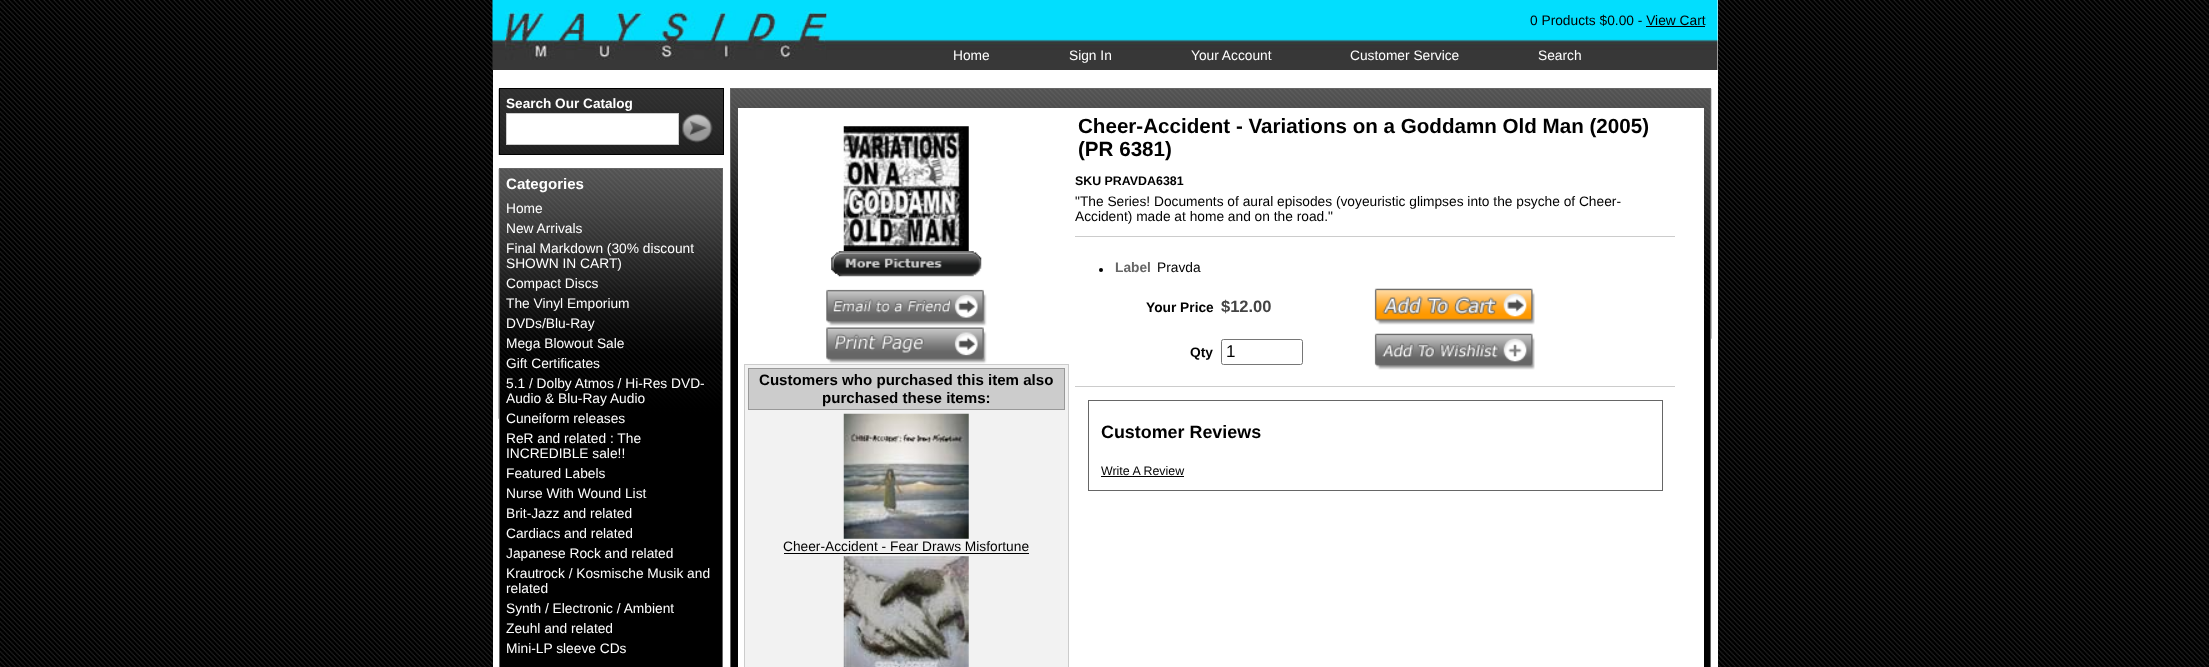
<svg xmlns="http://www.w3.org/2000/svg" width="2209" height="667">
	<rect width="100%" height="100%" fill="#FFFFFF" />
	<image x="0" y="0" width="2209" height="667" href="assets/img1.png" />
	<rect x="493" y="0" width="1225" height="667" fill="#FFFFFF" />
	<image x="492" y="0" width="1226" height="70" href="assets/img2.png" />
	<image x="505" y="10" width="322" height="50" href="assets/img3.png" />
	<text x="1530" y="25" font-family="Liberation Sans" font-size="13.75" fill="#000000">0 Products $0.00 - View Cart</text>
	<rect x="1646" y="26" width="59" height="1" fill="#000000" />
	<g font-family="Liberation Sans" font-size="13.75" fill="#FFFFFF">
		<text x="953" y="60">Home</text>
		<text x="1069" y="60">Sign In</text>
		<text x="1191" y="60">Your Account</text>
		<text x="1350" y="60">Customer Service</text>
		<text x="1538" y="60">Search</text>
	</g>
	<image x="498" y="88" width="225" height="67" href="assets/img4.png" />
	<rect x="499.5" y="88.5" width="224" height="66" fill="none" stroke="#000000" />
	<text x="506" y="108" font-family="Liberation Sans" font-size="13.6" font-weight="700" fill="#FFFFFF">Search Our Catalog</text>
	<rect x="506.5" y="113.5" width="172" height="31" fill="#FFFFFF" stroke="#CCCCCC" />
	<image x="682" y="113" width="31" height="30" href="assets/img5.png" />
	<rect x="500" y="418" width="222" height="249" fill="#000000" />
	<image x="498" y="168" width="224" height="251" href="assets/img6.png" />
	<rect x="499.5" y="168.5" width="223" height="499" fill="none" stroke="#666666" />
	<text x="506" y="189" font-family="Liberation Sans" font-size="15.1" font-weight="700" fill="#FFFFFF">Categories</text>
	<g font-family="Liberation Sans" font-size="13.75" fill="#FFFFFF">
		<text x="506" y="213">Home</text>
		<text x="506" y="233">New Arrivals</text>
		<text x="506" y="253">Final Markdown (30% discount</text>
		<text x="506" y="268">SHOWN IN CART)</text>
		<text x="506" y="288">Compact Discs</text>
		<text x="506" y="308">The Vinyl Emporium</text>
		<text x="506" y="328">DVDs/Blu-Ray</text>
		<text x="506" y="348">Mega Blowout Sale</text>
		<text x="506" y="368">Gift Certificates</text>
		<text x="506" y="388">5.1 / Dolby Atmos / Hi-Res DVD-</text>
		<text x="506" y="403">Audio &amp; Blu-Ray Audio</text>
		<text x="506" y="423">Cuneiform releases</text>
		<text x="506" y="443">ReR and related : The</text>
		<text x="506" y="458">INCREDIBLE sale!!</text>
		<text x="506" y="478">Featured Labels</text>
		<text x="506" y="498">Nurse With Wound List</text>
		<text x="506" y="518">Brit-Jazz and related</text>
		<text x="506" y="538">Cardiacs and related</text>
		<text x="506" y="558">Japanese Rock and related</text>
		<text x="506" y="578">Krautrock / Kosmische Musik and</text>
		<text x="506" y="593">related</text>
		<text x="506" y="613">Synth / Electronic / Ambient</text>
		<text x="506" y="633">Zeuhl and related</text>
		<text x="506" y="653">Mini-LP sleeve CDs</text>
	</g>
	<rect x="731" y="338" width="979" height="329" fill="#000000" />
	<image x="731" y="88" width="981" height="251" href="assets/img7.png" />
	<rect x="730.5" y="88.5" width="980" height="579" fill="none" stroke="#666666" />
	<rect x="738" y="108" width="966" height="559" fill="#FFFFFF" />
	<image x="843" y="126" width="126" height="126" href="assets/img8.png" />
	<image x="831" y="251" width="151" height="26" href="assets/img9.png" />
	<image x="826" y="289" width="161" height="37" href="assets/img10.png" />
	<image x="826" y="327" width="161" height="37" href="assets/img11.png" />
	<rect x="744.5" y="364.5" width="324" height="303" fill="#F2F2F2" stroke="#CCCCCC" />
	<rect x="748.5" y="368.5" width="316" height="41" fill="#CCCCCC" stroke="#999999" />
	<g font-family="Liberation Sans" font-size="15.1" font-weight="700" fill="#000000">
		<text x="759" y="385">Customers who purchased this item also</text>
		<text x="822" y="403">purchased these items:</text>
	</g>
	<image x="843" y="413" width="126" height="126" href="assets/img12.png" />
	<text x="783" y="551" font-family="Liberation Sans" font-size="13.75" fill="#000000">Cheer-Accident - Fear Draws Misfortune</text>
	<rect x="784" y="553" width="245" height="1" fill="#000000" />
	<image x="843" y="556" width="126" height="111" href="assets/img13.png" />
	<g font-family="Liberation Sans" font-size="20.6" font-weight="700" fill="#000000">
		<text x="1078" y="133">Cheer-Accident - Variations on a Goddamn Old Man (2005)</text>
		<text x="1078" y="156">(PR 6381)</text>
	</g>
	<text x="1075" y="185" font-family="Liberation Sans" font-size="12.4" font-weight="700" fill="#000000">SKU PRAVDA6381</text>
	<g font-family="Liberation Sans" font-size="13.75" fill="#000000">
		<text x="1075" y="206">"The Series! Documents of aural episodes (voyeuristic glimpses into the psyche of Cheer-</text>
		<text x="1075" y="221">Accident) made at home and on the road."</text>
	</g>
	<rect x="1075" y="236" width="600" height="1" fill="#CCCCCC" />
	<rect x="1075" y="386" width="600" height="1" fill="#CCCCCC" />
	<circle cx="1101" cy="270" r="2" fill="#000000" />
	<text x="1115" y="272" font-family="Liberation Sans" font-size="13.75" font-weight="700" fill="#666666">Label</text>
	<text x="1157" y="272" font-family="Liberation Sans" font-size="13.75" fill="#000000">Pravda</text>
	<text x="1146" y="312" font-family="Liberation Sans" font-size="13.75" font-weight="700" fill="#000000">Your Price</text>
	<text x="1221" y="312" font-family="Liberation Sans" font-size="16.5" font-weight="700" fill="#444444">$12.00</text>
	<image x="1374" y="288" width="161" height="37" href="assets/img14.png" />
	<text x="1190" y="357" font-family="Liberation Sans" font-size="13.75" font-weight="700" fill="#000000">Qty</text>
	<rect x="1221.5" y="339.5" width="81" height="25" rx="2" fill="none" stroke="#767676" />
	<text x="1226" y="357" font-family="Liberation Sans" font-size="17" fill="#000000">1</text>
	<image x="1374" y="333" width="161" height="37" href="assets/img15.png" />
	<rect x="1088.5" y="400.5" width="574" height="90" fill="none" stroke="#666666" />
	<text x="1101" y="438" font-family="Liberation Sans" font-size="17.9" font-weight="700" fill="#000000">Customer Reviews</text>
	<text x="1101" y="475" font-family="Liberation Sans" font-size="12.4" fill="#000000">Write A Review</text>
	<rect x="1101" y="476" width="83" height="1" fill="#000000" />
</svg>
